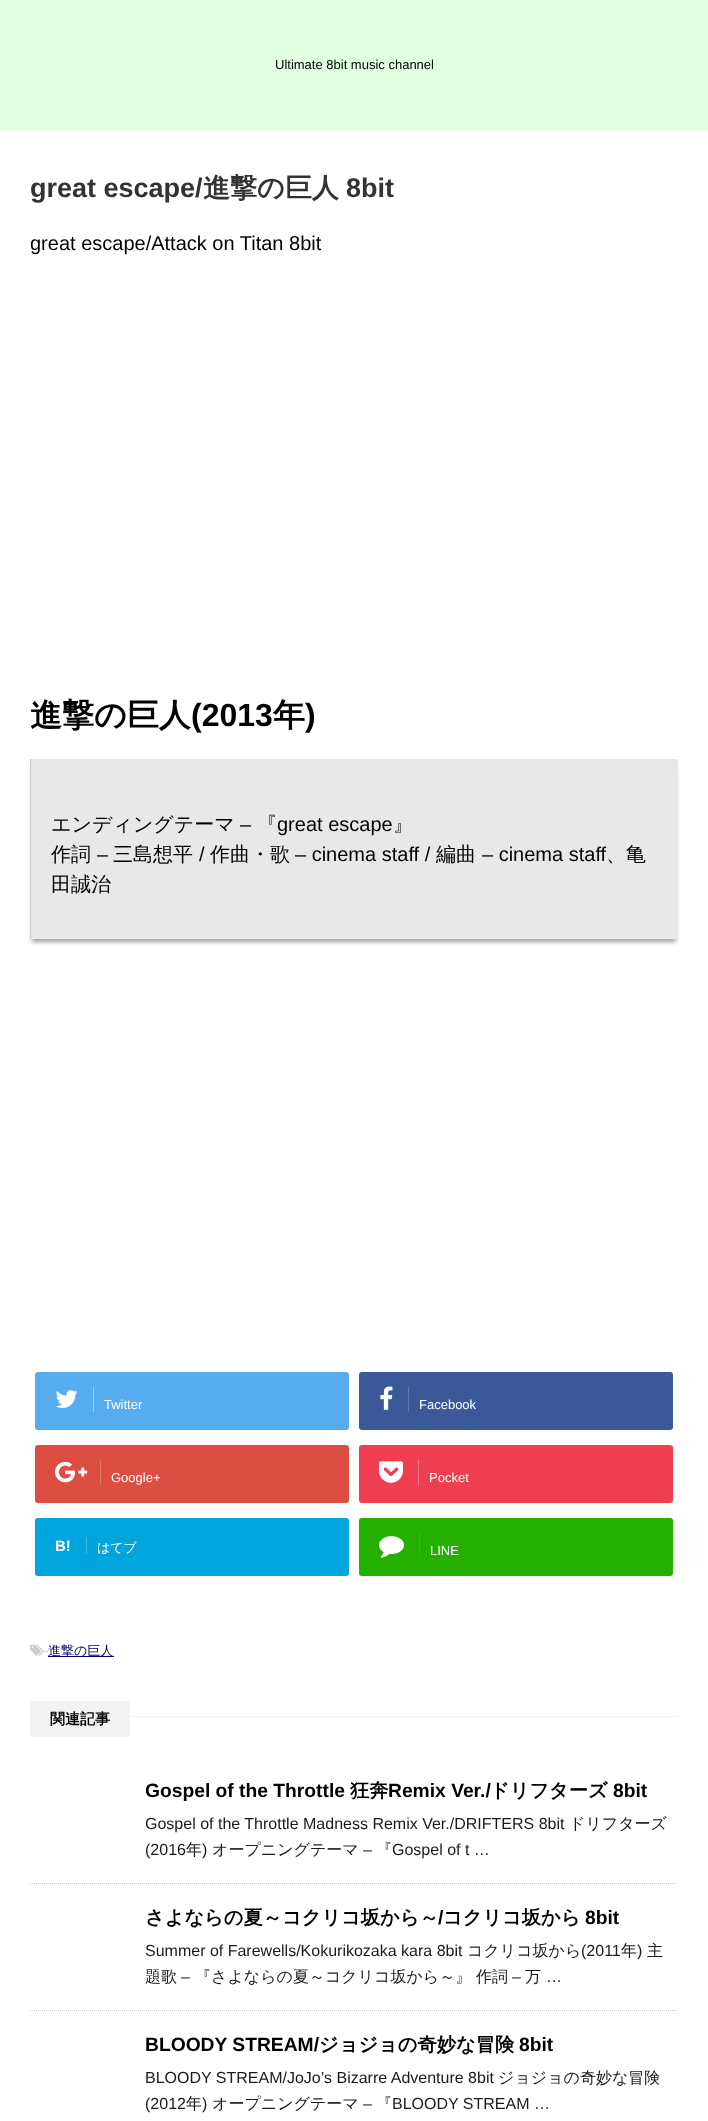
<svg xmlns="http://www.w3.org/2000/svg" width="708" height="2121">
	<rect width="100%" height="100%" fill="#E2FFE2" />
	<text x="275" y="69" font-family="Liberation Sans" font-size="13" fill="#000000">Ultimate 8bit music channel</text>
	<rect x="0" y="130" width="708" height="1991" fill="#FFFFFF" />
	<text x="30" y="197" font-family="Liberation Sans" font-size="27" font-weight="700" fill="#333333">great escape/</text>
	<text x="203" y="197" font-family="WenQuanYi Zen Hei" font-size="27" font-weight="700" fill="#333333">進撃の巨人</text>
	<text x="346" y="197" font-family="Liberation Sans" font-size="27" font-weight="700" fill="#333333">8bit</text>
	<text x="30" y="250" font-family="Liberation Sans" font-size="20" fill="#000000">great escape/Attack on Titan 8bit</text>
	<text x="30" y="726" font-family="WenQuanYi Zen Hei" font-size="32" font-weight="700" fill="#000000">進撃の巨人</text>
	<text x="191" y="726" font-family="Liberation Sans" font-size="32" font-weight="700" fill="#000000">(2013</text>
	<text x="273" y="726" font-family="WenQuanYi Zen Hei" font-size="32" font-weight="700" fill="#000000">年</text>
	<text x="305" y="726" font-family="Liberation Sans" font-size="32" font-weight="700" fill="#000000">)</text>
	<rect x="32" y="766" width="644" height="176" fill="#A0A0A0" filter="blur(2px)" />
	<rect x="31" y="759" width="647" height="180" fill="#E8E8E8" />
	<rect x="30" y="759" width="1" height="180" fill="#CCCCCC" />
	<text x="51" y="831" font-family="WenQuanYi Zen Hei" font-size="20" font-weight="500" fill="#000000">エンディングテーマ</text>
	<text x="240" y="831" font-family="Liberation Sans" font-size="20" fill="#000000">–</text>
	<text x="257" y="831" font-family="WenQuanYi Zen Hei" font-size="20" font-weight="500" fill="#000000">『</text>
	<text x="277" y="831" font-family="Liberation Sans" font-size="20" fill="#000000">great escape</text>
	<g font-family="WenQuanYi Zen Hei" font-size="20" font-weight="500" fill="#000000">
		<text x="393" y="831">』</text>
		<text x="51" y="861">作詞</text>
	</g>
	<text x="97" y="861" font-family="Liberation Sans" font-size="20" fill="#000000">–</text>
	<text x="113" y="861" font-family="WenQuanYi Zen Hei" font-size="20" font-weight="500" fill="#000000">三島想平</text>
	<text x="199" y="861" font-family="Liberation Sans" font-size="20" fill="#000000">/</text>
	<text x="210" y="861" font-family="WenQuanYi Zen Hei" font-size="20" font-weight="500" fill="#000000">作曲・歌</text>
	<text x="295" y="861" font-family="Liberation Sans" font-size="20" fill="#000000">– cinema staff /</text>
	<text x="436" y="861" font-family="WenQuanYi Zen Hei" font-size="20" font-weight="500" fill="#000000">編曲</text>
	<text x="482" y="861" font-family="Liberation Sans" font-size="20" fill="#000000">– cinema staff</text>
	<g font-family="WenQuanYi Zen Hei" font-size="20" font-weight="500" fill="#000000">
		<text x="606" y="861">、亀</text>
		<text x="51" y="891">田誠治</text>
	</g>
	<rect x="35" y="1372" width="314" height="58" rx="3" fill="#55ACEE" />
	<rect x="93" y="1387" width="1" height="25" fill="#9ACFF4" />
	<image x="55" y="1390" width="23" height="18" href="assets/img1.png" />
	<text x="104" y="1409" font-family="Liberation Sans" font-size="13" fill="#FFFFFF">Twitter</text>
	<rect x="359" y="1372" width="314" height="58" rx="3" fill="#3B5998" />
	<rect x="408" y="1387" width="1" height="25" fill="#607BB2" />
	<image x="380" y="1386" width="13" height="24" href="assets/img2.png" />
	<text x="419" y="1409" font-family="Liberation Sans" font-size="13" fill="#FFFFFF">Facebook</text>
	<rect x="35" y="1445" width="314" height="58" rx="3" fill="#DC4E41" />
	<rect x="100" y="1460" width="1" height="25" fill="#E0776D" />
	<image x="55" y="1461" width="33" height="22" href="assets/img3.png" />
	<text x="111" y="1482" font-family="Liberation Sans" font-size="13" fill="#FFFFFF">Google+</text>
	<rect x="359" y="1445" width="314" height="58" rx="3" fill="#F03E51" />
	<rect x="418" y="1460" width="1" height="25" fill="#F27985" />
	<image x="379" y="1461" width="24" height="22" href="assets/img4.png" />
	<text x="429" y="1482" font-family="Liberation Sans" font-size="13" fill="#FFFFFF">Pocket</text>
	<rect x="35" y="1518" width="314" height="58" rx="3" fill="#00A5DE" />
	<text x="55" y="1551" font-family="Liberation Sans" font-size="15" font-weight="700" fill="#FFFFFF">B!</text>
	<rect x="86" y="1537" width="1" height="17" fill="#48B6DB" />
	<text x="97" y="1552" font-family="WenQuanYi Zen Hei" font-size="13" font-weight="500" fill="#FFFFFF">はてブ</text>
	<rect x="359" y="1518" width="314" height="58" rx="3" fill="#25AF00" />
	<rect x="419" y="1533" width="1" height="25" fill="#29C200" />
	<image x="379" y="1536" width="25" height="22" href="assets/img5.png" />
	<text x="430" y="1555" font-family="Liberation Sans" font-size="13" fill="#FFFFFF">LINE</text>
	<image x="30" y="1644" width="14" height="12" href="assets/img6.png" />
	<text x="44" y="1655" font-family="Liberation Sans" font-size="13" fill="#CCCCCC">-</text>
	<rect x="48" y="1656" width="66" height="1" fill="#000066" />
	<text x="48" y="1655" font-family="WenQuanYi Zen Hei" font-size="13" font-weight="500" fill="#000066">進撃の巨人</text>
	<rect x="130" y="1716" width="548" height="1" fill="#F3F3F3" />
	<rect x="30" y="1701" width="100" height="36" fill="#F3F3F3" />
	<text x="50" y="1724" font-family="WenQuanYi Zen Hei" font-size="15" font-weight="700" fill="#000000">関連記事</text>
	<path d="M30 1883.5H678" fill="none" stroke="#CCCCCC" stroke-dasharray="1 1" />
	<text x="145" y="1797" font-family="Liberation Sans" font-size="19.25" font-weight="700" fill="#000000">Gospel of the Throttle</text>
	<text x="350" y="1797" font-family="WenQuanYi Zen Hei" font-size="19.25" font-weight="700" fill="#000000">狂奔</text>
	<text x="388" y="1797" font-family="Liberation Sans" font-size="19.25" font-weight="700" fill="#000000">Remix Ver./</text>
	<text x="490" y="1797" font-family="WenQuanYi Zen Hei" font-size="19.25" font-weight="700" fill="#000000">ドリフターズ</text>
	<text x="613" y="1797" font-family="Liberation Sans" font-size="19.25" font-weight="700" fill="#000000">8bit</text>
	<text x="145" y="1829" font-family="Liberation Sans" font-size="16" fill="#1A1A1A">Gospel of the Throttle Madness Remix Ver./DRIFTERS 8bit</text>
	<text x="569" y="1829" font-family="WenQuanYi Zen Hei" font-size="16" font-weight="500" fill="#1A1A1A">ドリフターズ</text>
	<text x="145" y="1855" font-family="Liberation Sans" font-size="16" fill="#1A1A1A">(2016</text>
	<text x="186" y="1855" font-family="WenQuanYi Zen Hei" font-size="16" font-weight="500" fill="#1A1A1A">年</text>
	<text x="202" y="1855" font-family="Liberation Sans" font-size="16" fill="#1A1A1A">)</text>
	<text x="212" y="1855" font-family="WenQuanYi Zen Hei" font-size="16" font-weight="500" fill="#1A1A1A">オープニングテーマ</text>
	<text x="363" y="1855" font-family="Liberation Sans" font-size="16" fill="#1A1A1A">–</text>
	<text x="376" y="1855" font-family="WenQuanYi Zen Hei" font-size="16" font-weight="500" fill="#1A1A1A">『</text>
	<text x="392" y="1855" font-family="Liberation Sans" font-size="16" fill="#1A1A1A">Gospel of t …</text>
	<path d="M30 2010.5H678" fill="none" stroke="#CCCCCC" stroke-dasharray="1 1" />
	<text x="145" y="1924" font-family="WenQuanYi Zen Hei" font-size="19.25" font-weight="700" fill="#000000">さよならの夏～コクリコ坂から～</text>
	<text x="438" y="1924" font-family="Liberation Sans" font-size="19.25" font-weight="700" fill="#000000">/</text>
	<text x="443" y="1924" font-family="WenQuanYi Zen Hei" font-size="19.25" font-weight="700" fill="#000000">コクリコ坂から</text>
	<text x="585" y="1924" font-family="Liberation Sans" font-size="19.25" font-weight="700" fill="#000000">8bit</text>
	<text x="145" y="1956" font-family="Liberation Sans" font-size="16" fill="#1A1A1A">Summer of Farewells/Kokurikozaka kara 8bit</text>
	<text x="467" y="1956" font-family="WenQuanYi Zen Hei" font-size="16" font-weight="500" fill="#1A1A1A">コクリコ坂から</text>
	<text x="581" y="1956" font-family="Liberation Sans" font-size="16" fill="#1A1A1A">(2011</text>
	<text x="621" y="1956" font-family="WenQuanYi Zen Hei" font-size="16" font-weight="500" fill="#1A1A1A">年</text>
	<text x="637" y="1956" font-family="Liberation Sans" font-size="16" fill="#1A1A1A">)</text>
	<g font-family="WenQuanYi Zen Hei" font-size="16" font-weight="500" fill="#1A1A1A">
		<text x="647" y="1956">主</text>
		<text x="145" y="1982">題歌</text>
	</g>
	<text x="181" y="1982" font-family="Liberation Sans" font-size="16" fill="#1A1A1A">–</text>
	<text x="195" y="1982" font-family="WenQuanYi Zen Hei" font-size="16" font-weight="500" fill="#1A1A1A">『さよならの夏～コクリコ坂から～』 作詞</text>
	<text x="512" y="1982" font-family="Liberation Sans" font-size="16" fill="#1A1A1A">–</text>
	<text x="525" y="1982" font-family="WenQuanYi Zen Hei" font-size="16" font-weight="500" fill="#1A1A1A">万</text>
	<text x="546" y="1982" font-family="Liberation Sans" font-size="16" fill="#1A1A1A">…</text>
	<text x="145" y="2051" font-family="Liberation Sans" font-size="19.25" font-weight="700" fill="#000000">BLOODY STREAM/</text>
	<text x="319" y="2051" font-family="WenQuanYi Zen Hei" font-size="19.25" font-weight="700" fill="#000000">ジョジョの奇妙な冒険</text>
	<text x="519" y="2051" font-family="Liberation Sans" font-size="19.25" font-weight="700" fill="#000000">8bit</text>
	<text x="145" y="2083" font-family="Liberation Sans" font-size="16" fill="#1A1A1A">BLOODY STREAM/JoJo’s Bizarre Adventure 8bit</text>
	<text x="498" y="2083" font-family="WenQuanYi Zen Hei" font-size="16" font-weight="500" fill="#1A1A1A">ジョジョの奇妙な冒険</text>
	<text x="145" y="2109" font-family="Liberation Sans" font-size="16" fill="#1A1A1A">(2012</text>
	<text x="186" y="2109" font-family="WenQuanYi Zen Hei" font-size="16" font-weight="500" fill="#1A1A1A">年</text>
	<text x="202" y="2109" font-family="Liberation Sans" font-size="16" fill="#1A1A1A">)</text>
	<text x="212" y="2109" font-family="WenQuanYi Zen Hei" font-size="16" font-weight="500" fill="#1A1A1A">オープニングテーマ</text>
	<text x="363" y="2109" font-family="Liberation Sans" font-size="16" fill="#1A1A1A">–</text>
	<text x="376" y="2109" font-family="WenQuanYi Zen Hei" font-size="16" font-weight="500" fill="#1A1A1A">『</text>
	<text x="392" y="2109" font-family="Liberation Sans" font-size="16" fill="#1A1A1A">BLOODY STREAM …</text>
</svg>
